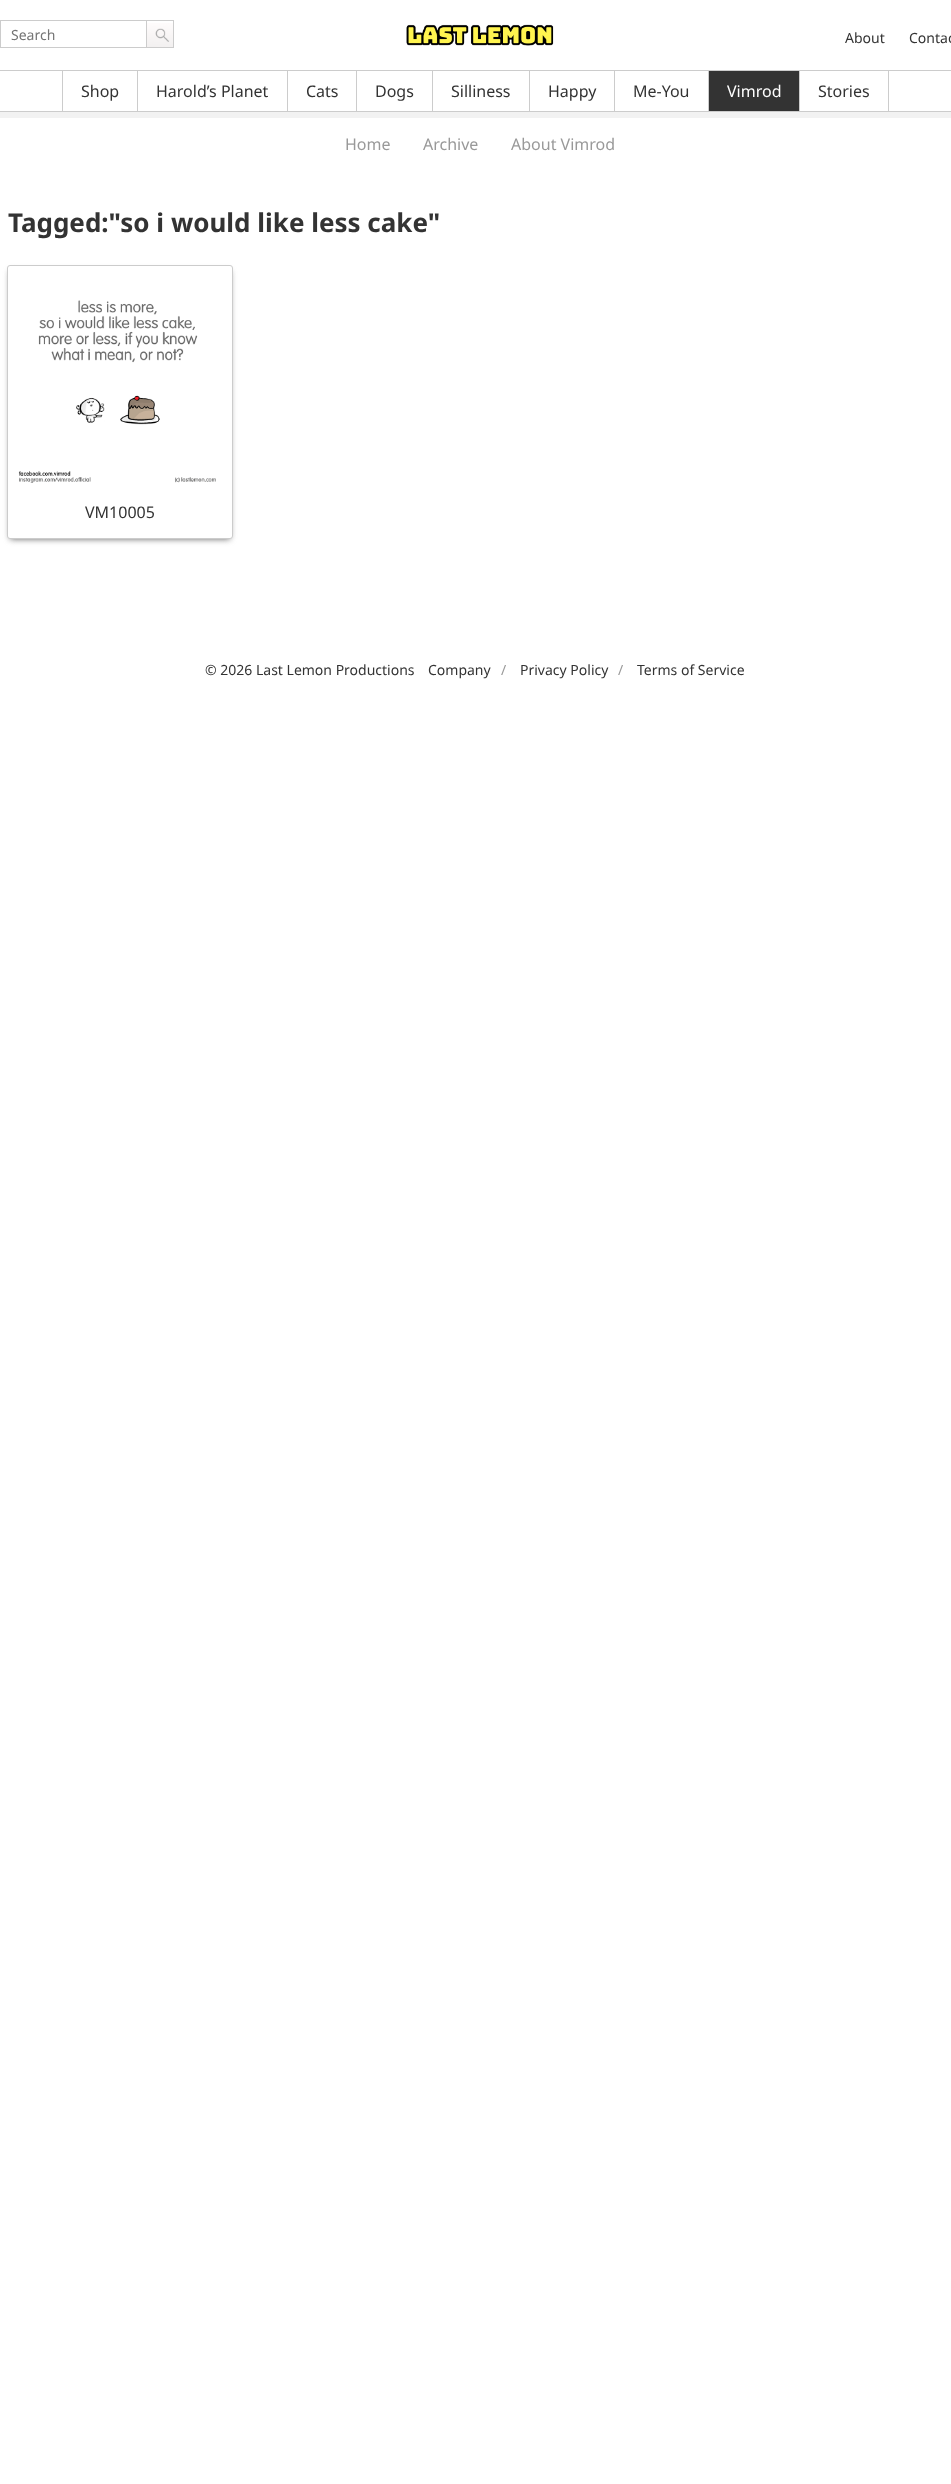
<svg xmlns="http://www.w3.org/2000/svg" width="951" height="2484">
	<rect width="100%" height="100%" fill="#FFFFFF" />
	<rect x="0" y="20" width="146" height="1" fill="#CCCCCC" />
	<rect x="0" y="47" width="146" height="1" fill="#CCCCCC" />
	<rect x="0" y="20" width="1" height="28" fill="#CCCCCC" />
	<text x="11" y="40" font-family="Noto Sans" font-size="14" fill="#757575">Search</text>
	<image x="147" y="23" width="26" height="24" href="assets/img1.png" />
	<rect x="146.5" y="20.5" width="27" height="27" fill="none" stroke="#CCCCCC" />
	<image x="406" y="24" width="148" height="22" href="assets/img2.png" />
	<g font-family="Noto Sans" font-size="14" fill="#333333">
		<text x="845" y="43">About</text>
		<text x="909" y="43">Contac</text>
	</g>
	<path d="M-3 70V118H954V70H951V112H0V70Z" fill="#F2F2F2" />
	<rect x="0" y="70" width="951" height="1" fill="#CCCCCC" />
	<rect x="0" y="111" width="951" height="1" fill="#CCCCCC" />
	<rect x="137" y="71" width="1" height="40" fill="#CCCCCC" />
	<rect x="62" y="71" width="1" height="40" fill="#CCCCCC" />
	<text x="81" y="97" font-family="Noto Sans" font-size="16" fill="#333333">Shop</text>
	<rect x="287" y="71" width="1" height="40" fill="#CCCCCC" />
	<text x="156" y="97" font-family="Noto Sans" font-size="16" fill="#333333">Harold’s Planet</text>
	<rect x="356" y="71" width="1" height="40" fill="#CCCCCC" />
	<text x="306" y="97" font-family="Noto Sans" font-size="16" fill="#333333">Cats</text>
	<rect x="432" y="71" width="1" height="40" fill="#CCCCCC" />
	<text x="375" y="97" font-family="Noto Sans" font-size="16" fill="#333333">Dogs</text>
	<rect x="529" y="71" width="1" height="40" fill="#CCCCCC" />
	<text x="451" y="97" font-family="Noto Sans" font-size="16" fill="#333333">Silliness</text>
	<rect x="614" y="71" width="1" height="40" fill="#CCCCCC" />
	<text x="548" y="97" font-family="Noto Sans" font-size="16" fill="#333333">Happy</text>
	<rect x="708" y="71" width="1" height="40" fill="#CCCCCC" />
	<text x="633" y="97" font-family="Noto Sans" font-size="16" fill="#333333">Me-You</text>
	<rect x="709" y="71" width="90" height="40" fill="#333333" />
	<rect x="799" y="71" width="1" height="40" fill="#CCCCCC" />
	<text x="727" y="97" font-family="Noto Sans" font-size="16" fill="#FFFFFF">Vimrod</text>
	<rect x="888" y="71" width="1" height="40" fill="#CCCCCC" />
	<text x="818" y="97" font-family="Noto Sans" font-size="16" fill="#333333">Stories</text>
	<g font-family="Noto Sans" font-size="16" fill="#999999">
		<text x="345" y="150">Home</text>
		<text x="423" y="150">Archive</text>
		<text x="511" y="150">About Vimrod</text>
	</g>
	<text x="8" y="232" font-family="Noto Sans" font-size="26" font-weight="700" fill="#333333">Tagged:"so i would like less cake"</text>
	<rect x="10" y="271" width="220" height="268" fill="#666666" filter="blur(3px)" />
	<rect x="7.5" y="265.5" width="225" height="273" rx="2.5" fill="#FFFFFF" stroke="#CCCCCC" />
	<image x="18" y="300" width="198" height="183" href="assets/img3.png" />
	<text x="85" y="518" font-family="Noto Sans" font-size="16" fill="#333333">VM10005</text>
	<g font-family="Noto Sans" font-size="14" fill="#333333">
		<text x="205" y="675">© 2026 Last Lemon Productions</text>
		<text x="428" y="675">Company</text>
	</g>
	<text x="501" y="675" font-family="Noto Sans" font-size="14" fill="#999999">/</text>
	<text x="520" y="675" font-family="Noto Sans" font-size="14" fill="#333333">Privacy Policy</text>
	<text x="618" y="675" font-family="Noto Sans" font-size="14" fill="#999999">/</text>
	<text x="637" y="675" font-family="Noto Sans" font-size="14" fill="#333333">Terms of Service</text>
</svg>
